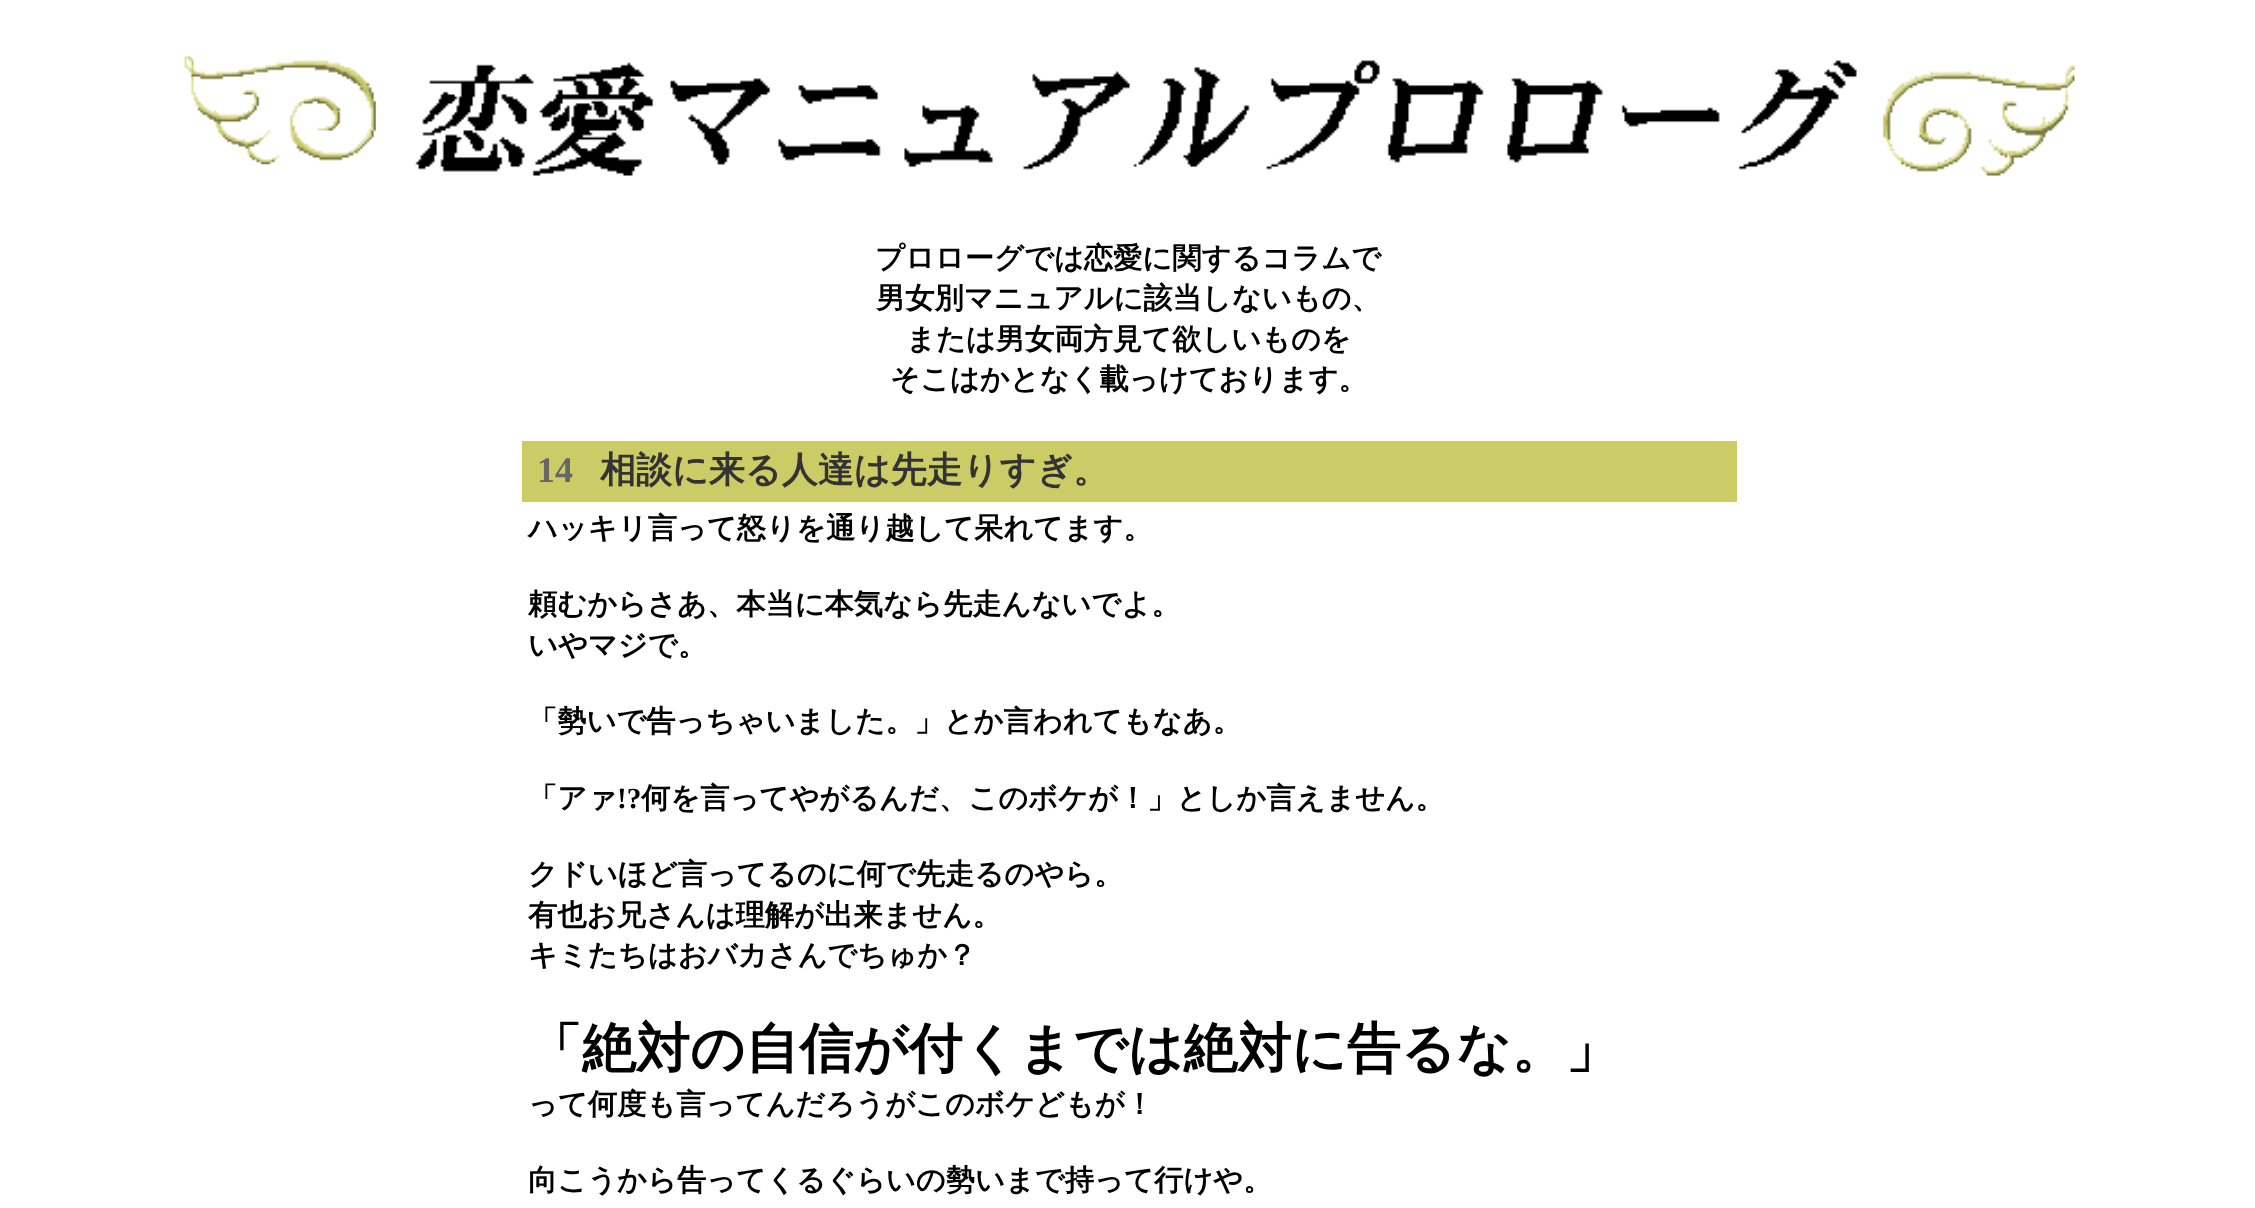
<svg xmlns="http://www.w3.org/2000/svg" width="2255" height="1208">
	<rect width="100%" height="100%" fill="#FFFFFF" />
	<image x="184" y="55" width="192" height="110" href="assets/img1.png" />
	<image x="415" y="60" width="1442" height="116" href="assets/img2.png" />
	<image x="1883" y="65" width="192" height="111" href="assets/img3.png" />
	<g font-family="WenQuanYi Zen Hei" font-size="29.25" font-weight="700" fill="#000000">
		<text x="875" y="268">プロローグでは恋愛に関するコラムで</text>
		<text x="876" y="308">男女別マニュアルに該当しないもの、</text>
		<text x="906" y="349">または男女両方見て欲しいものを</text>
		<text x="890" y="389">そこはかとなく載っけております。</text>
	</g>
	<rect x="522" y="441" width="1215" height="61" fill="#CCCC66" />
	<text x="537" y="482" font-family="Liberation Serif" font-size="36" font-weight="700" fill="#666666">14</text>
	<text x="600" y="482" font-family="WenQuanYi Zen Hei" font-size="36" font-weight="700" fill="#333333">相談に来る人達は先走りすぎ。</text>
	<g font-family="WenQuanYi Zen Hei" font-size="29.25" font-weight="700" fill="#000000">
		<text x="528" y="538">ハッキリ言って怒りを通り越して呆れてます。</text>
		<text x="528" y="614">頼むからさあ、本当に本気なら先走んないでよ。</text>
		<text x="528" y="655">いやマジで。</text>
		<text x="528" y="731">「勢いで告っちゃいました。」とか言われてもなあ。</text>
		<text x="528" y="808">「アァ</text>
	</g>
	<text x="617" y="808" font-family="Liberation Serif" font-size="29.25" font-weight="700" fill="#000000">!?</text>
	<g font-family="WenQuanYi Zen Hei" font-size="29.25" font-weight="700" fill="#000000">
		<text x="641" y="808">何を言ってやがるんだ、このボケが！」としか言えません。</text>
		<text x="528" y="884">クドいほど言ってるのに何で先走るのやら。</text>
		<text x="528" y="925">有也お兄さんは理解が出来ません。</text>
		<text x="528" y="965">キミたちはおバカさんでちゅか？</text>
	</g>
	<text x="528" y="1067" font-family="WenQuanYi Zen Hei" font-size="54" font-weight="700" fill="#000000">「絶対の自信が付くまでは絶対に告るな。」</text>
	<g font-family="WenQuanYi Zen Hei" font-size="29.25" font-weight="700" fill="#000000">
		<text x="528" y="1114">って何度も言ってんだろうがこのボケどもが！</text>
		<text x="528" y="1190">向こうから告ってくるぐらいの勢いまで持って行けや。</text>
	</g>
</svg>
